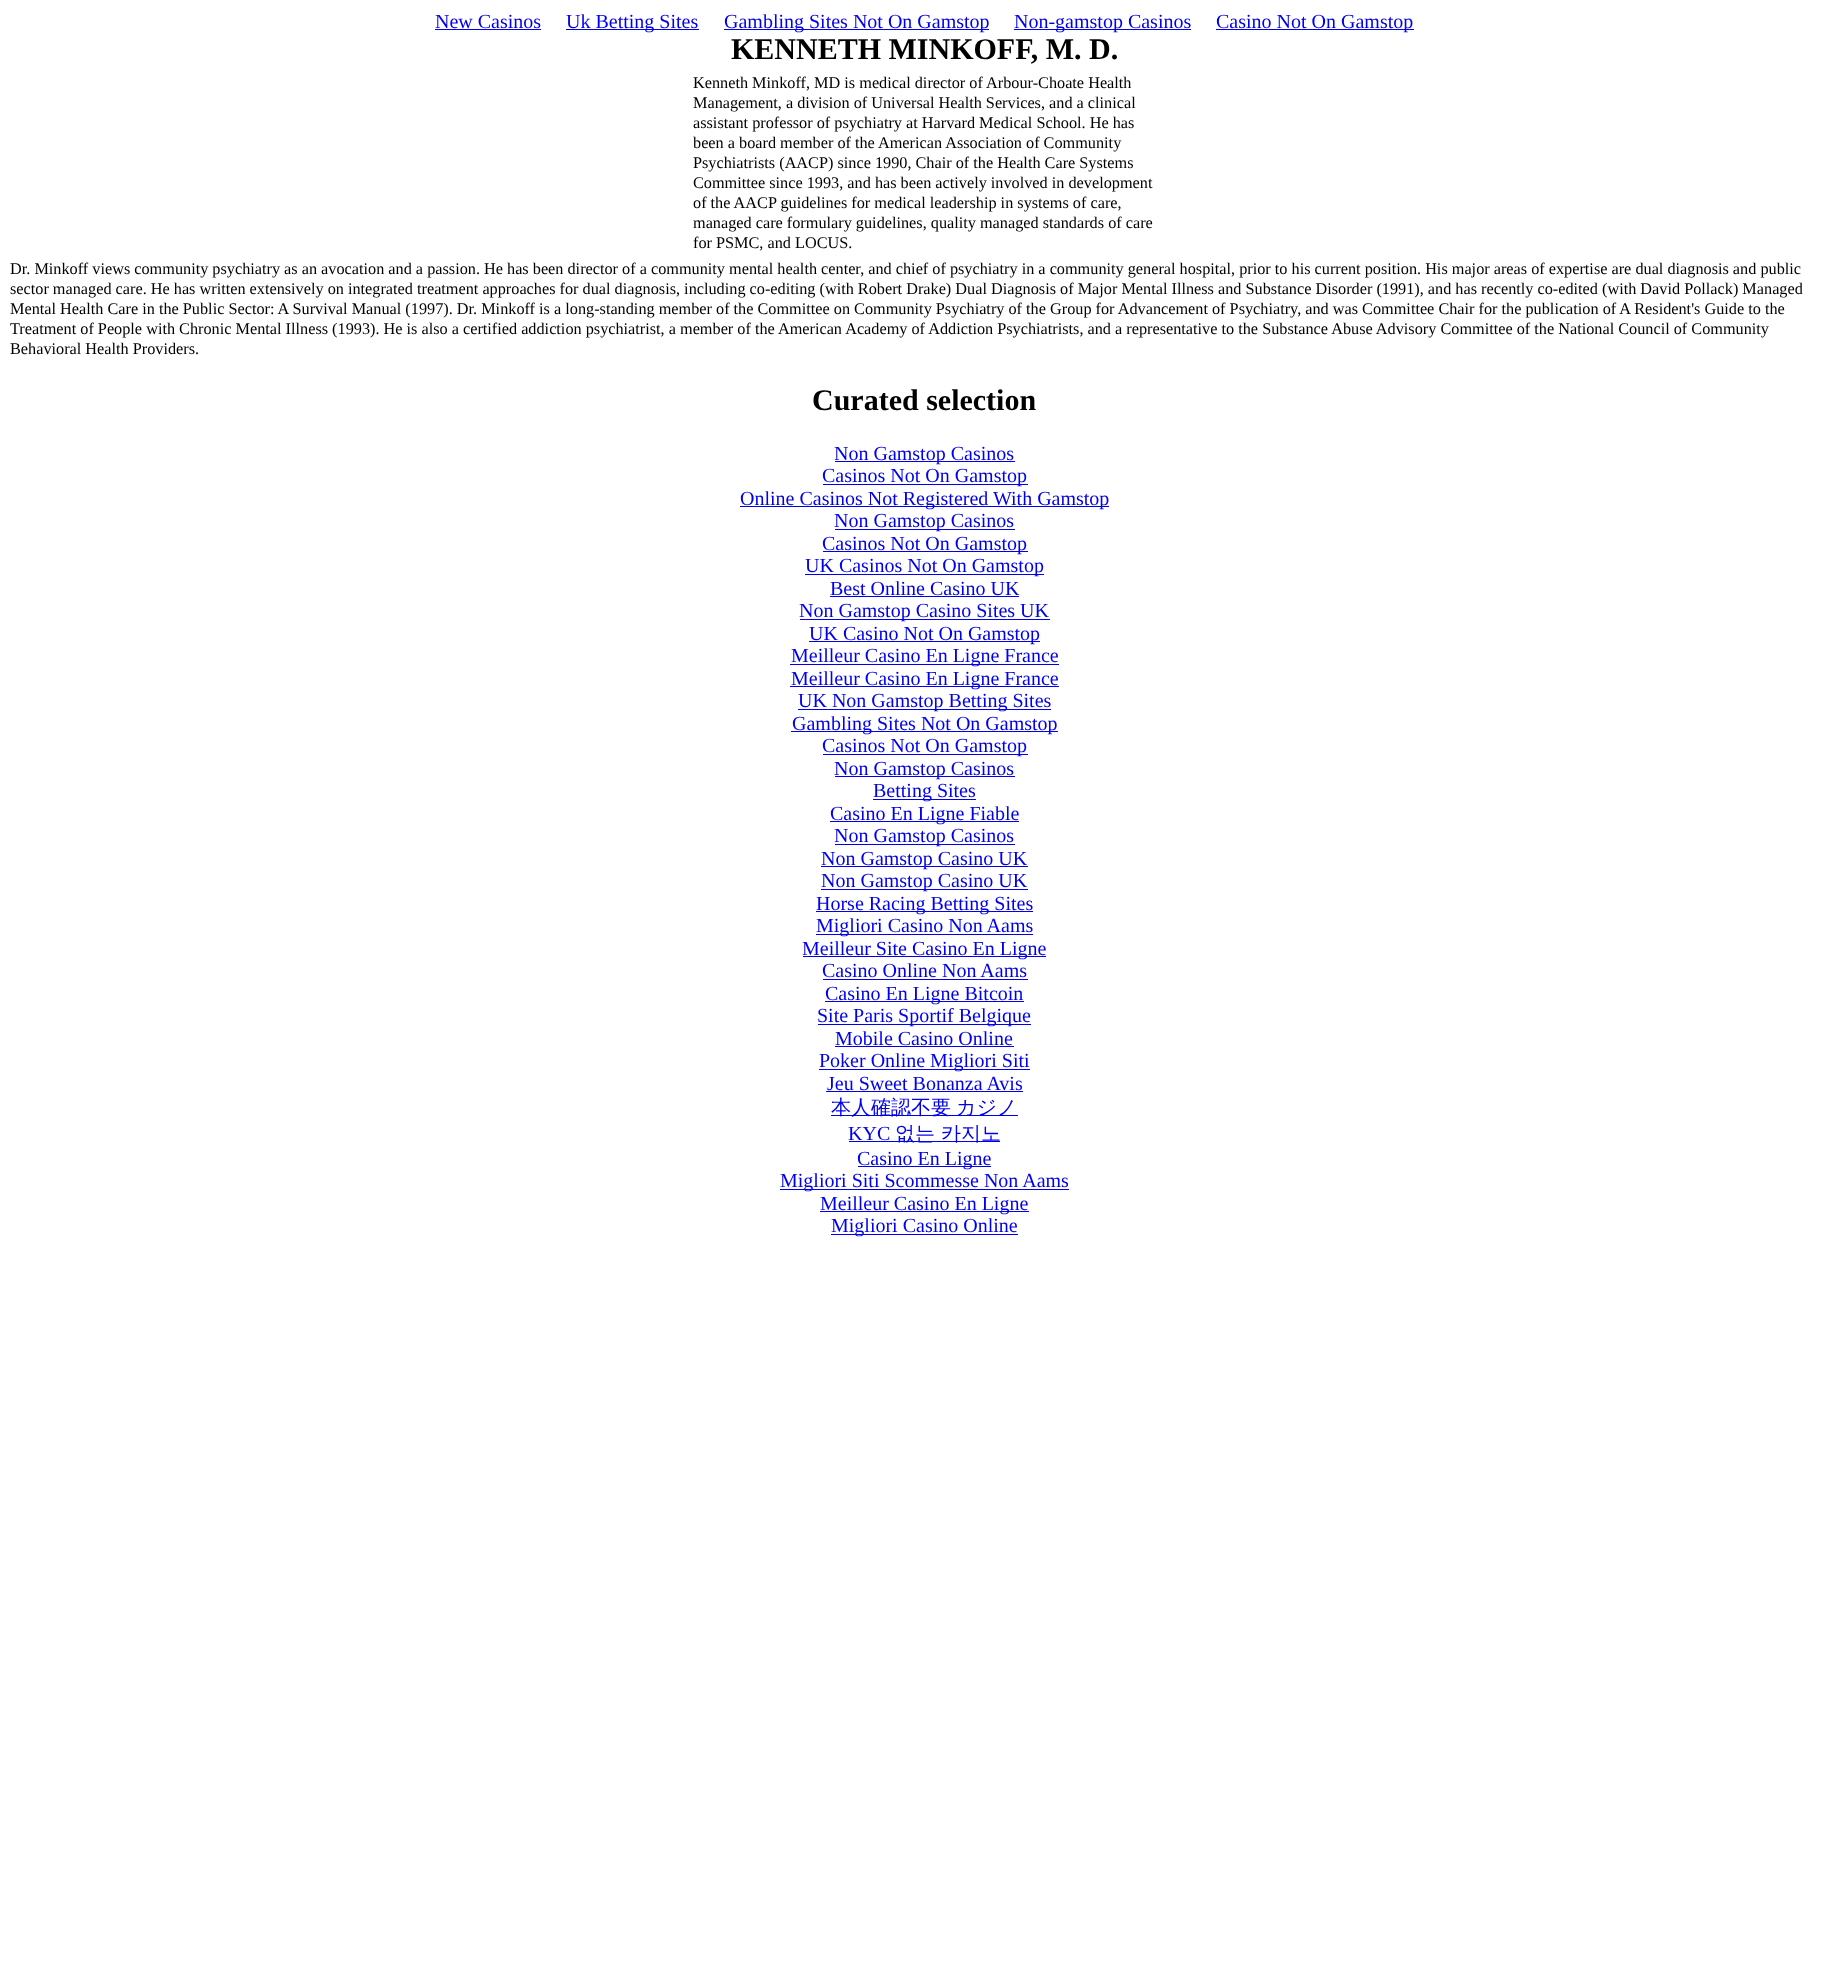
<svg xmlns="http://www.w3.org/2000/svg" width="1848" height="1983">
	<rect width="100%" height="100%" fill="#FFFFFF" />
	<text x="435" y="28" font-family="Liberation Serif" font-size="20" fill="#0000EE">New Casinos</text>
	<rect x="435" y="29" width="106" height="1" fill="#0000EE" />
	<rect x="566" y="29" width="133" height="1" fill="#0000EE" />
	<text x="566" y="28" font-family="Liberation Serif" font-size="20" fill="#0000EE">Uk Betting Sites</text>
	<rect x="724" y="29" width="265" height="1" fill="#0000EE" />
	<text x="724" y="28" font-family="Liberation Serif" font-size="20" fill="#0000EE">Gambling Sites Not On Gamstop</text>
	<rect x="1014" y="29" width="177" height="1" fill="#0000EE" />
	<text x="1014" y="28" font-family="Liberation Serif" font-size="20" fill="#0000EE">Non-gamstop Casinos</text>
	<rect x="1216" y="29" width="198" height="1" fill="#0000EE" />
	<text x="1216" y="28" font-family="Liberation Serif" font-size="20" fill="#0000EE">Casino Not On Gamstop</text>
	<text x="731" y="59" font-family="Liberation Serif" font-size="30" font-weight="700" fill="#000000">KENNETH MINKOFF, M. D.</text>
	<g font-family="Liberation Serif" font-size="16.25" fill="#000000">
		<text x="693" y="88">Kenneth Minkoff, MD is medical director of Arbour-Choate Health</text>
		<text x="693" y="108">Management, a division of Universal Health Services, and a clinical</text>
		<text x="693" y="128">assistant professor of psychiatry at Harvard Medical School. He has</text>
		<text x="693" y="148">been a board member of the American Association of Community</text>
		<text x="693" y="168">Psychiatrists (AACP) since 1990, Chair of the Health Care Systems</text>
		<text x="693" y="188">Committee since 1993, and has been actively involved in development</text>
		<text x="693" y="208">of the AACP guidelines for medical leadership in systems of care,</text>
		<text x="693" y="228">managed care formulary guidelines, quality managed standards of care</text>
		<text x="693" y="248">for PSMC, and LOCUS.</text>
		<text x="10" y="274">Dr. Minkoff views community psychiatry as an avocation and a passion. He has been director of a community mental health center, and chief of psychiatry in a community general hospital, prior to his current position. His major areas of expertise are dual diagnosis and public</text>
		<text x="10" y="294">sector managed care. He has written extensively on integrated treatment approaches for dual diagnosis, including co-editing (with Robert Drake) Dual Diagnosis of Major Mental Illness and Substance Disorder (1991), and has recently co-edited (with David Pollack) Managed</text>
		<text x="10" y="314">Mental Health Care in the Public Sector: A Survival Manual (1997). Dr. Minkoff is a long-standing member of the Committee on Community Psychiatry of the Group for Advancement of Psychiatry, and was Committee Chair for the publication of A Resident's Guide to the</text>
		<text x="10" y="334">Treatment of People with Chronic Mental Illness (1993). He is also a certified addiction psychiatrist, a member of the American Academy of Addiction Psychiatrists, and a representative to the Substance Abuse Advisory Committee of the National Council of Community</text>
		<text x="10" y="354">Behavioral Health Providers.</text>
	</g>
	<text x="812" y="410" font-family="Liberation Serif" font-size="30" font-weight="700" fill="#000000">Curated selection</text>
	<rect x="835" y="461" width="180" height="1" fill="#0000EE" />
	<text x="834" y="460" font-family="Liberation Serif" font-size="20" fill="#0000EE">Non Gamstop Casinos</text>
	<rect x="823" y="484" width="205" height="1" fill="#0000EE" />
	<text x="822" y="482" font-family="Liberation Serif" font-size="20" fill="#0000EE">Casinos Not On Gamstop</text>
	<rect x="740" y="506" width="369" height="1" fill="#0000EE" />
	<text x="740" y="505" font-family="Liberation Serif" font-size="20" fill="#0000EE">Online Casinos Not Registered With Gamstop</text>
	<rect x="835" y="529" width="180" height="1" fill="#0000EE" />
	<text x="834" y="527" font-family="Liberation Serif" font-size="20" fill="#0000EE">Non Gamstop Casinos</text>
	<rect x="823" y="551" width="205" height="1" fill="#0000EE" />
	<text x="822" y="550" font-family="Liberation Serif" font-size="20" fill="#0000EE">Casinos Not On Gamstop</text>
	<rect x="805" y="574" width="239" height="1" fill="#0000EE" />
	<g font-family="Liberation Serif" font-size="20" fill="#0000EE">
		<text x="805" y="572">UK Casinos Not On Gamstop</text>
		<text x="830" y="595">Best Online Casino UK</text>
	</g>
	<rect x="830" y="596" width="189" height="1" fill="#0000EE" />
	<rect x="800" y="619" width="250" height="1" fill="#0000EE" />
	<text x="799" y="617" font-family="Liberation Serif" font-size="20" fill="#0000EE">Non Gamstop Casino Sites UK</text>
	<rect x="809" y="641" width="231" height="1" fill="#0000EE" />
	<text x="809" y="640" font-family="Liberation Serif" font-size="20" fill="#0000EE">UK Casino Not On Gamstop</text>
	<rect x="790" y="664" width="269" height="1" fill="#0000EE" />
	<text x="791" y="662" font-family="Liberation Serif" font-size="20" fill="#0000EE">Meilleur Casino En Ligne France</text>
	<rect x="790" y="686" width="269" height="1" fill="#0000EE" />
	<text x="791" y="685" font-family="Liberation Serif" font-size="20" fill="#0000EE">Meilleur Casino En Ligne France</text>
	<rect x="798" y="709" width="253" height="1" fill="#0000EE" />
	<text x="798" y="707" font-family="Liberation Serif" font-size="20" fill="#0000EE">UK Non Gamstop Betting Sites</text>
	<rect x="791" y="731" width="267" height="1" fill="#0000EE" />
	<text x="792" y="730" font-family="Liberation Serif" font-size="20" fill="#0000EE">Gambling Sites Not On Gamstop</text>
	<rect x="823" y="754" width="205" height="1" fill="#0000EE" />
	<text x="822" y="752" font-family="Liberation Serif" font-size="20" fill="#0000EE">Casinos Not On Gamstop</text>
	<rect x="835" y="776" width="180" height="1" fill="#0000EE" />
	<text x="834" y="775" font-family="Liberation Serif" font-size="20" fill="#0000EE">Non Gamstop Casinos</text>
	<rect x="873" y="799" width="103" height="1" fill="#0000EE" />
	<text x="873" y="797" font-family="Liberation Serif" font-size="20" fill="#0000EE">Betting Sites</text>
	<rect x="830" y="821" width="189" height="1" fill="#0000EE" />
	<text x="830" y="820" font-family="Liberation Serif" font-size="20" fill="#0000EE">Casino En Ligne Fiable</text>
	<rect x="835" y="844" width="180" height="1" fill="#0000EE" />
	<text x="834" y="842" font-family="Liberation Serif" font-size="20" fill="#0000EE">Non Gamstop Casinos</text>
	<rect x="821" y="866" width="207" height="1" fill="#0000EE" />
	<text x="821" y="865" font-family="Liberation Serif" font-size="20" fill="#0000EE">Non Gamstop Casino UK</text>
	<rect x="821" y="889" width="207" height="1" fill="#0000EE" />
	<text x="821" y="887" font-family="Liberation Serif" font-size="20" fill="#0000EE">Non Gamstop Casino UK</text>
	<rect x="816" y="911" width="217" height="1" fill="#0000EE" />
	<text x="816" y="910" font-family="Liberation Serif" font-size="20" fill="#0000EE">Horse Racing Betting Sites</text>
	<rect x="816" y="934" width="217" height="1" fill="#0000EE" />
	<text x="816" y="932" font-family="Liberation Serif" font-size="20" fill="#0000EE">Migliori Casino Non Aams</text>
	<rect x="803" y="956" width="243" height="1" fill="#0000EE" />
	<g font-family="Liberation Serif" font-size="20" fill="#0000EE">
		<text x="802" y="955">Meilleur Site Casino En Ligne</text>
		<text x="822" y="977">Casino Online Non Aams</text>
	</g>
	<rect x="823" y="979" width="205" height="1" fill="#0000EE" />
	<rect x="825" y="1001" width="199" height="1" fill="#0000EE" />
	<text x="825" y="1000" font-family="Liberation Serif" font-size="20" fill="#0000EE">Casino En Ligne Bitcoin</text>
	<rect x="818" y="1024" width="213" height="1" fill="#0000EE" />
	<g font-family="Liberation Serif" font-size="20" fill="#0000EE">
		<text x="817" y="1022">Site Paris Sportif Belgique</text>
		<text x="835" y="1045">Mobile Casino Online</text>
	</g>
	<rect x="835" y="1046" width="179" height="1" fill="#0000EE" />
	<rect x="819" y="1069" width="211" height="1" fill="#0000EE" />
	<g font-family="Liberation Serif" font-size="20" fill="#0000EE">
		<text x="819" y="1067">Poker Online Migliori Siti</text>
		<text x="827" y="1090">Jeu Sweet Bonanza Avis</text>
	</g>
	<rect x="826" y="1091" width="197" height="1" fill="#0000EE" />
	<rect x="831" y="1115" width="187" height="1" fill="#0000EE" />
	<text x="831" y="1114" word-spacing="-1" font-family="WenQuanYi Zen Hei" font-size="20" font-weight="500" fill="#0000EE">本人確認不要 カジノ</text>
	<text x="848" y="1140" font-family="Liberation Serif" font-size="20" fill="#0000EE">KYC</text>
	<rect x="849" y="1141" width="151" height="1" fill="#0000EE" />
	<text x="895" y="1140" font-family="WenQuanYi Zen Hei" font-size="20" font-weight="500" fill="#0000EE">없는 카지노</text>
	<rect x="858" y="1166" width="133" height="1" fill="#0000EE" />
	<text x="857" y="1165" font-family="Liberation Serif" font-size="20" fill="#0000EE">Casino En Ligne</text>
	<rect x="780" y="1189" width="289" height="1" fill="#0000EE" />
	<text x="780" y="1187" font-family="Liberation Serif" font-size="20" fill="#0000EE">Migliori Siti Scommesse Non Aams</text>
	<rect x="820" y="1211" width="209" height="1" fill="#0000EE" />
	<text x="820" y="1210" font-family="Liberation Serif" font-size="20" fill="#0000EE">Meilleur Casino En Ligne</text>
	<rect x="831" y="1234" width="187" height="1" fill="#0000EE" />
	<text x="831" y="1232" font-family="Liberation Serif" font-size="20" fill="#0000EE">Migliori Casino Online</text>
</svg>
